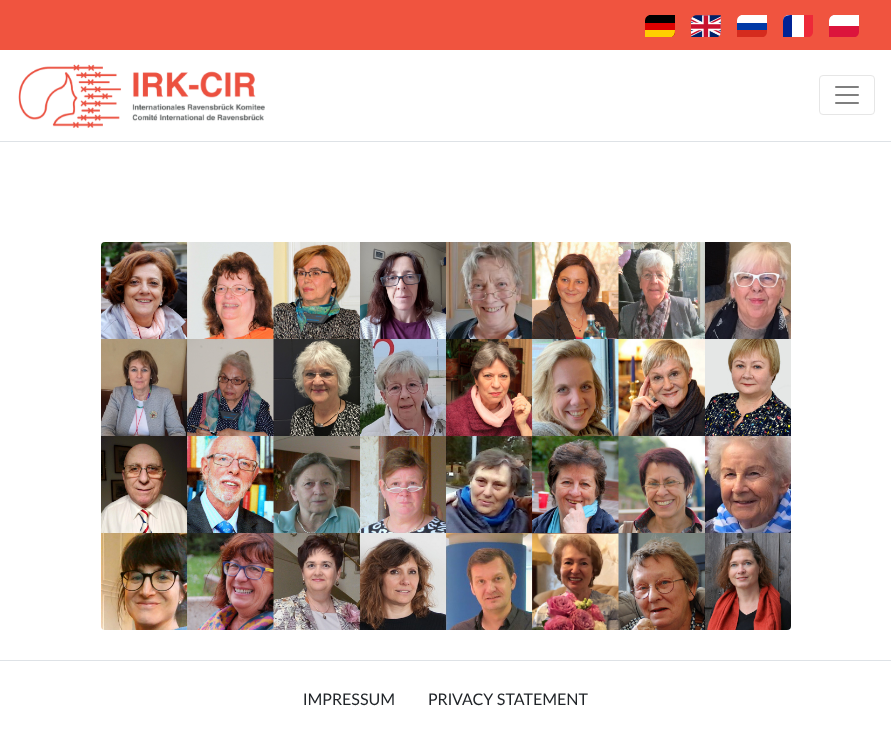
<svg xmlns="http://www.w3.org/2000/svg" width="891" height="736">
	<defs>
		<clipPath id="clip1"><rect x="645" y="15" width="30" height="22" /></clipPath>
		<clipPath id="clip2"><rect x="737" y="15" width="30" height="22" /></clipPath>
		<clipPath id="clip3"><rect x="783" y="15" width="30" height="22" /></clipPath>
		<clipPath id="clip4"><rect x="829" y="15" width="30" height="22" /></clipPath>
	</defs>
	<rect width="100%" height="100%" fill="#FFFFFF" />
	<rect x="0" y="0" width="891" height="50" fill="#F0543F" />
	<g clip-path="url(#clip1)">
		<path d="M645 21V37.5H669C672.5 37.5 675 35 675 32V15H650.5C647.5 15 645 17.5 645 21Z" fill="#000000" />
		<path d="M675 23V32C675 35 672.5 37.5 669 37.5H645V23Z" fill="#DD0000" />
		<path d="M675 30C675 39.5 669 37.5 661 37.5H645V30Z" fill="#FFCE00" />
	</g>
	<image x="691" y="15" width="30" height="22" href="assets/img1.png" />
	<path d="M737 21C737 17.5 739.5 15 742.5 15H767V26H737Z" fill="#FFFFFF" />
	<g clip-path="url(#clip2)">
		<path d="M767 26V32C767 35 764.5 37.5 761 37.5H737V26Z" fill="#D52B1E" />
	</g>
	<rect x="737" y="23" width="30" height="7" fill="#0039A6" />
	<g clip-path="url(#clip3)">
		<path d="M783 21V37.5H807C810.5 37.5 813 35 813 32V15H788.5C785.5 15 783 17.5 783 21Z" fill="#ED2939" />
		<path d="M783 21C783 17.5 785.5 15 788.5 15H804V37.5H783Z" fill="#FFFFFF" />
		<path d="M783 21C783 15.5 788 15 792 15V37.5H783Z" fill="#002395" />
	</g>
	<g clip-path="url(#clip4)">
		<path d="M829 21V37.5H853C856.5 37.5 859 35 859 32V15H834.5C831.5 15 829 17.5 829 21Z" fill="#DC143C" />
	</g>
	<path d="M829 21C829 17.5 831.5 15 834.5 15H859V26H829Z" fill="#FFFFFF" />
	<rect x="0" y="141" width="891" height="1" fill="#DEE2E6" />
	<image x="18" y="64" width="247" height="64" href="assets/img2.png" />
	<rect x="819.5" y="75.5" width="55" height="39" rx="3.5" fill="none" stroke="#E6E6E6" />
	<image x="835" y="86" width="24" height="18" href="assets/img3.png" />
	<image x="101" y="242" width="690" height="388" href="assets/img4.png" />
	<rect x="0" y="660" width="891" height="1" fill="#DEE2E6" />
	<g font-family="Lato" font-size="16" fill="#212529">
		<text x="303" y="705">IMPRESSUM</text>
		<text x="428" y="705">PRIVACY STATEMENT</text>
	</g>
</svg>
